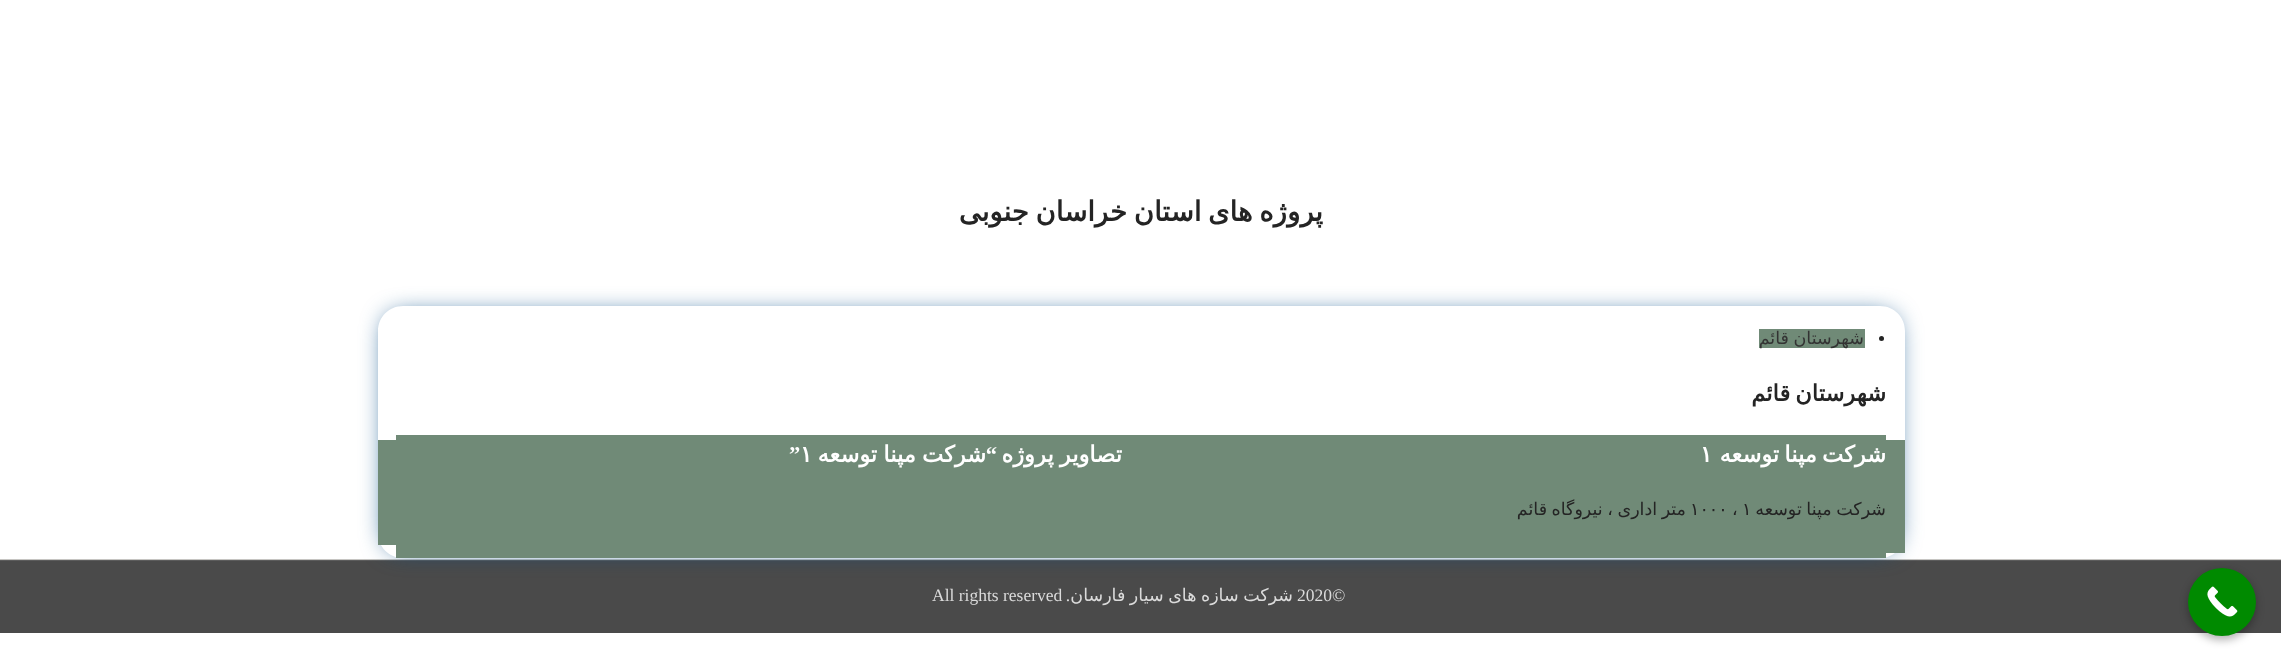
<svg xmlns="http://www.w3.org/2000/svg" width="2281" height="654">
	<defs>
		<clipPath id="clip1"><path d="M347 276H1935V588H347ZM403 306H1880C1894 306 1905 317 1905 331V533C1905 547 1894 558 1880 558H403C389 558 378 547 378 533V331C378 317 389 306 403 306Z" clip-rule="evenodd" /></clipPath>
	</defs>
	<rect width="100%" height="100%" fill="#FFFFFF" />
	<rect x="0" y="559" width="2281" height="1" fill="#C6C5C2" />
	<rect x="0" y="561" width="2281" height="72" fill="#4A4A4A" />
	<rect x="0" y="560" width="2281" height="1" fill="#5C5C5C" />
	<rect x="2188" y="571" width="68" height="69" rx="34" fill="#000000" fill-opacity="0.3" filter="blur(4px)" />
	<circle cx="2222" cy="602" r="34" fill="#008A00" />
	<image x="2207" y="586" width="31" height="31" href="assets/img1.png" />
	<text x="1323" y="221" word-spacing="-2" font-family="DejaVu Sans" font-size="27.5" font-weight="700" direction="rtl" fill="#242424">پروژه های استان خراسان جنوبی</text>
	<g clip-path="url(#clip1)">
		<rect x="386" y="315" width="1510" height="234" rx="16" fill="#064D87" filter="blur(12.5px)" />
	</g>
	<circle cx="1881.5" cy="338.5" r="2.5" fill="#242424" />
	<rect x="1759" y="329" width="106" height="19" fill="#708A77" />
	<text x="1864" y="344" word-spacing="-1" font-family="DejaVu Sans" font-size="17.5" direction="rtl" fill="#333333">شهرستان قائم</text>
	<text x="1886" y="401" word-spacing="-2" font-family="DejaVu Sans" font-size="22.5" font-weight="700" direction="rtl" fill="#242424">شهرستان قائم</text>
	<rect x="396" y="435" width="1490" height="123" fill="#708A77" />
	<rect x="1886" y="440" width="19" height="113" fill="#708A77" />
	<text x="1886" y="462" word-spacing="-2" font-family="DejaVu Sans" font-size="22.5" font-weight="700" direction="rtl" fill="#FFFFFF">شرکت مپنا توسعه</text>
	<text x="1700" y="462" font-family="DejaVu Sans" font-size="22.5" font-weight="700" fill="#FFFFFF">۱</text>
	<text x="1886" y="515" word-spacing="-1" font-family="DejaVu Sans" font-size="17.5" direction="rtl" fill="#242424">شرکت مپنا توسعه</text>
	<g font-family="DejaVu Sans" font-size="17.5" fill="#242424">
		<text x="1742" y="515">۱</text>
		<text x="1732" y="515">،</text>
		<text x="1690" y="515">۱۰۰۰</text>
	</g>
	<text x="1686" y="515" word-spacing="-1" font-family="DejaVu Sans" font-size="17.5" direction="rtl" fill="#242424">متر اداری ، نیروگاه قائم</text>
	<rect x="378" y="440" width="18" height="105" fill="#708A77" />
	<text x="1122" y="462" word-spacing="-1" font-family="DejaVu Sans" font-size="22.5" font-weight="700" direction="rtl" fill="#FFFFFF">تصاویر پروژه</text>
	<text x="997" y="462" font-family="Liberation Serif" font-size="22.5" font-weight="700" direction="rtl" fill="#FFFFFF">“</text>
	<text x="986" y="462" word-spacing="-1" font-family="DejaVu Sans" font-size="22.5" font-weight="700" direction="rtl" fill="#FFFFFF">شرکت مپنا توسعه</text>
	<text x="800" y="462" font-family="DejaVu Sans" font-size="22.5" font-weight="700" fill="#FFFFFF">۱</text>
	<text x="789" y="462" font-family="Liberation Serif" font-size="22.5" font-weight="700" fill="#FFFFFF">”</text>
	<text x="1297" y="601" font-family="Liberation Serif" font-size="17.5" fill="#DBDBDB">2020©</text>
	<text x="1293" y="601" word-spacing="-1" font-family="DejaVu Sans" font-size="17.5" direction="rtl" fill="#DBDBDB">شرکت سازه های سیار فارسان</text>
	<text x="1070" y="601" font-family="Liberation Serif" font-size="17.5" direction="rtl" fill="#DBDBDB">.</text>
	<text x="932" y="601" font-family="Liberation Serif" font-size="17.5" fill="#DBDBDB">All rights reserved</text>
</svg>
